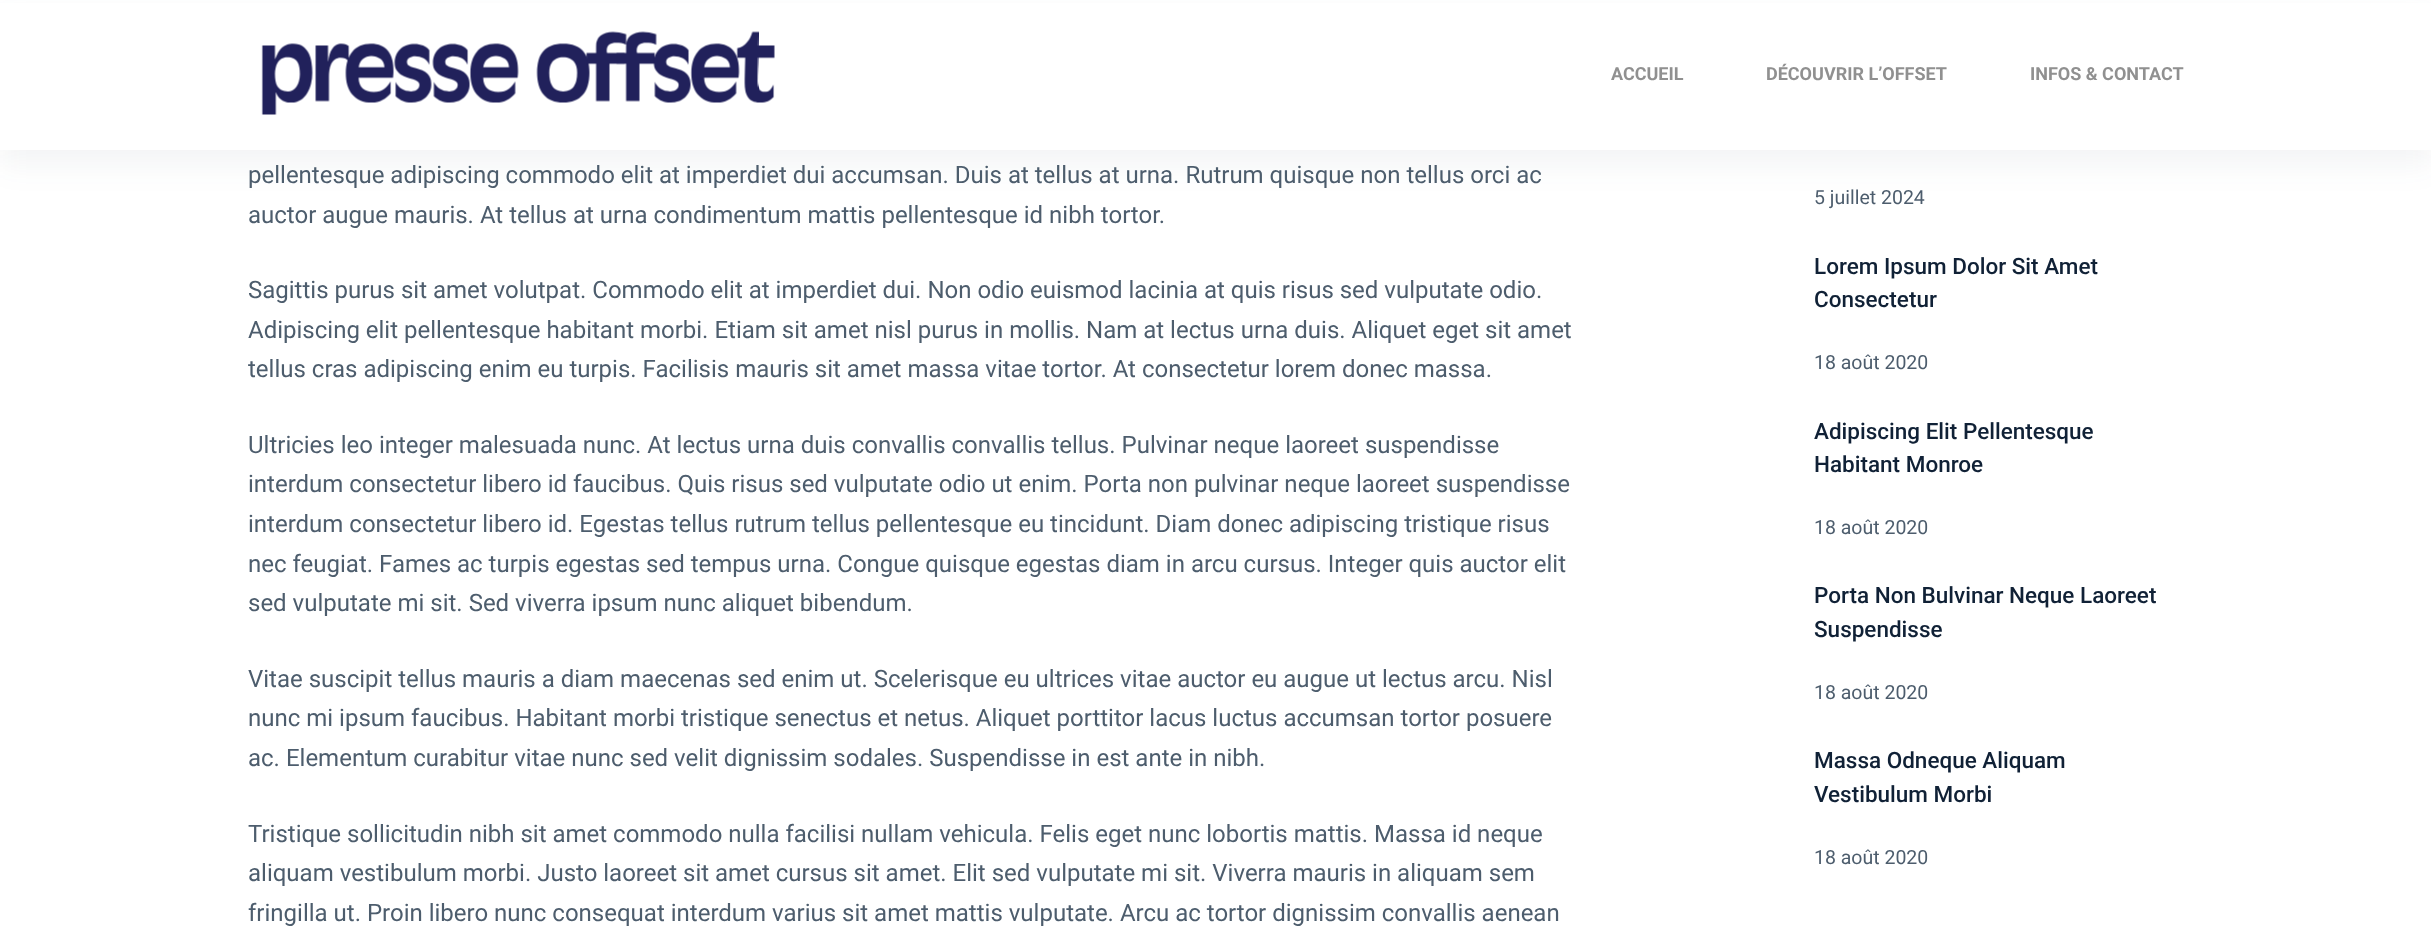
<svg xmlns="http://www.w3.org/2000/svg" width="2431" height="933">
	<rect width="100%" height="100%" fill="#FFFFFF" />
	<rect x="0" y="15" width="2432" height="150" fill="#2B3D50" fill-opacity="0.06" filter="blur(15px)" />
	<rect x="0" y="3" width="2431" height="147" fill="#FFFFFF" />
	<image x="261" y="31" width="514" height="84" href="assets/img1.png" />
	<g font-family="Roboto" font-size="18" font-weight="700" fill="#909090">
		<text x="1611" y="80">ACCUEIL</text>
		<text x="1766" y="80">DÉCOUVRIR L’OFFSET</text>
		<text x="2030" y="80">INFOS &amp; CONTACT</text>
	</g>
	<g font-family="Roboto" font-size="24" fill="#4D5D6D">
		<text x="248" y="183">pellentesque adipiscing commodo elit at imperdiet dui accumsan. Duis at tellus at urna. Rutrum quisque non tellus orci ac</text>
		<text x="248" y="223">auctor augue mauris. At tellus at urna condimentum mattis pellentesque id nibh tortor.</text>
		<text x="248" y="298">Sagittis purus sit amet volutpat. Commodo elit at imperdiet dui. Non odio euismod lacinia at quis risus sed vulputate odio.</text>
		<text x="248" y="338">Adipiscing elit pellentesque habitant morbi. Etiam sit amet nisl purus in mollis. Nam at lectus urna duis. Aliquet eget sit amet</text>
		<text x="248" y="377">tellus cras adipiscing enim eu turpis. Facilisis mauris sit amet massa vitae tortor. At consectetur lorem donec massa.</text>
		<text x="248" y="453">Ultricies leo integer malesuada nunc. At lectus urna duis convallis convallis tellus. Pulvinar neque laoreet suspendisse</text>
		<text x="248" y="492">interdum consectetur libero id faucibus. Quis risus sed vulputate odio ut enim. Porta non pulvinar neque laoreet suspendisse</text>
		<text x="248" y="532">interdum consectetur libero id. Egestas tellus rutrum tellus pellentesque eu tincidunt. Diam donec adipiscing tristique risus</text>
		<text x="248" y="572">nec feugiat. Fames ac turpis egestas sed tempus urna. Congue quisque egestas diam in arcu cursus. Integer quis auctor elit</text>
		<text x="248" y="611">sed vulputate mi sit. Sed viverra ipsum nunc aliquet bibendum.</text>
		<text x="248" y="687">Vitae suscipit tellus mauris a diam maecenas sed enim ut. Scelerisque eu ultrices vitae auctor eu augue ut lectus arcu. Nisl</text>
		<text x="248" y="726">nunc mi ipsum faucibus. Habitant morbi tristique senectus et netus. Aliquet porttitor lacus luctus accumsan tortor posuere</text>
		<text x="248" y="766">ac. Elementum curabitur vitae nunc sed velit dignissim sodales. Suspendisse in est ante in nibh.</text>
		<text x="248" y="842">Tristique sollicitudin nibh sit amet commodo nulla facilisi nullam vehicula. Felis eget nunc lobortis mattis. Massa id neque</text>
		<text x="248" y="881">aliquam vestibulum morbi. Justo laoreet sit amet cursus sit amet. Elit sed vulputate mi sit. Viverra mauris in aliquam sem</text>
		<text x="248" y="921">fringilla ut. Proin libero nunc consequat interdum varius sit amet mattis vulputate. Arcu ac tortor dignissim convallis aenean</text>
	</g>
	<text x="1814" y="204" font-family="Roboto" font-size="19.5" fill="#4D5D6D">5 juillet 2024</text>
	<g font-family="Roboto" font-size="22.5" font-weight="500" fill="#102136">
		<text x="1814" y="274">Lorem Ipsum Dolor Sit Amet</text>
		<text x="1814" y="307">Consectetur</text>
	</g>
	<text x="1814" y="369" font-family="Roboto" font-size="19.5" fill="#4D5D6D">18 août 2020</text>
	<g font-family="Roboto" font-size="22.5" font-weight="500" fill="#102136">
		<text x="1814" y="439">Adipiscing Elit Pellentesque</text>
		<text x="1814" y="472">Habitant Monroe</text>
	</g>
	<text x="1814" y="534" font-family="Roboto" font-size="19.5" fill="#4D5D6D">18 août 2020</text>
	<g font-family="Roboto" font-size="22.5" font-weight="500" fill="#102136">
		<text x="1814" y="603">Porta Non Bulvinar Neque Laoreet</text>
		<text x="1814" y="637">Suspendisse</text>
	</g>
	<text x="1814" y="699" font-family="Roboto" font-size="19.5" fill="#4D5D6D">18 août 2020</text>
	<g font-family="Roboto" font-size="22.5" font-weight="500" fill="#102136">
		<text x="1814" y="768">Massa Odneque Aliquam</text>
		<text x="1814" y="802">Vestibulum Morbi</text>
	</g>
	<text x="1814" y="864" font-family="Roboto" font-size="19.5" fill="#4D5D6D">18 août 2020</text>
</svg>
